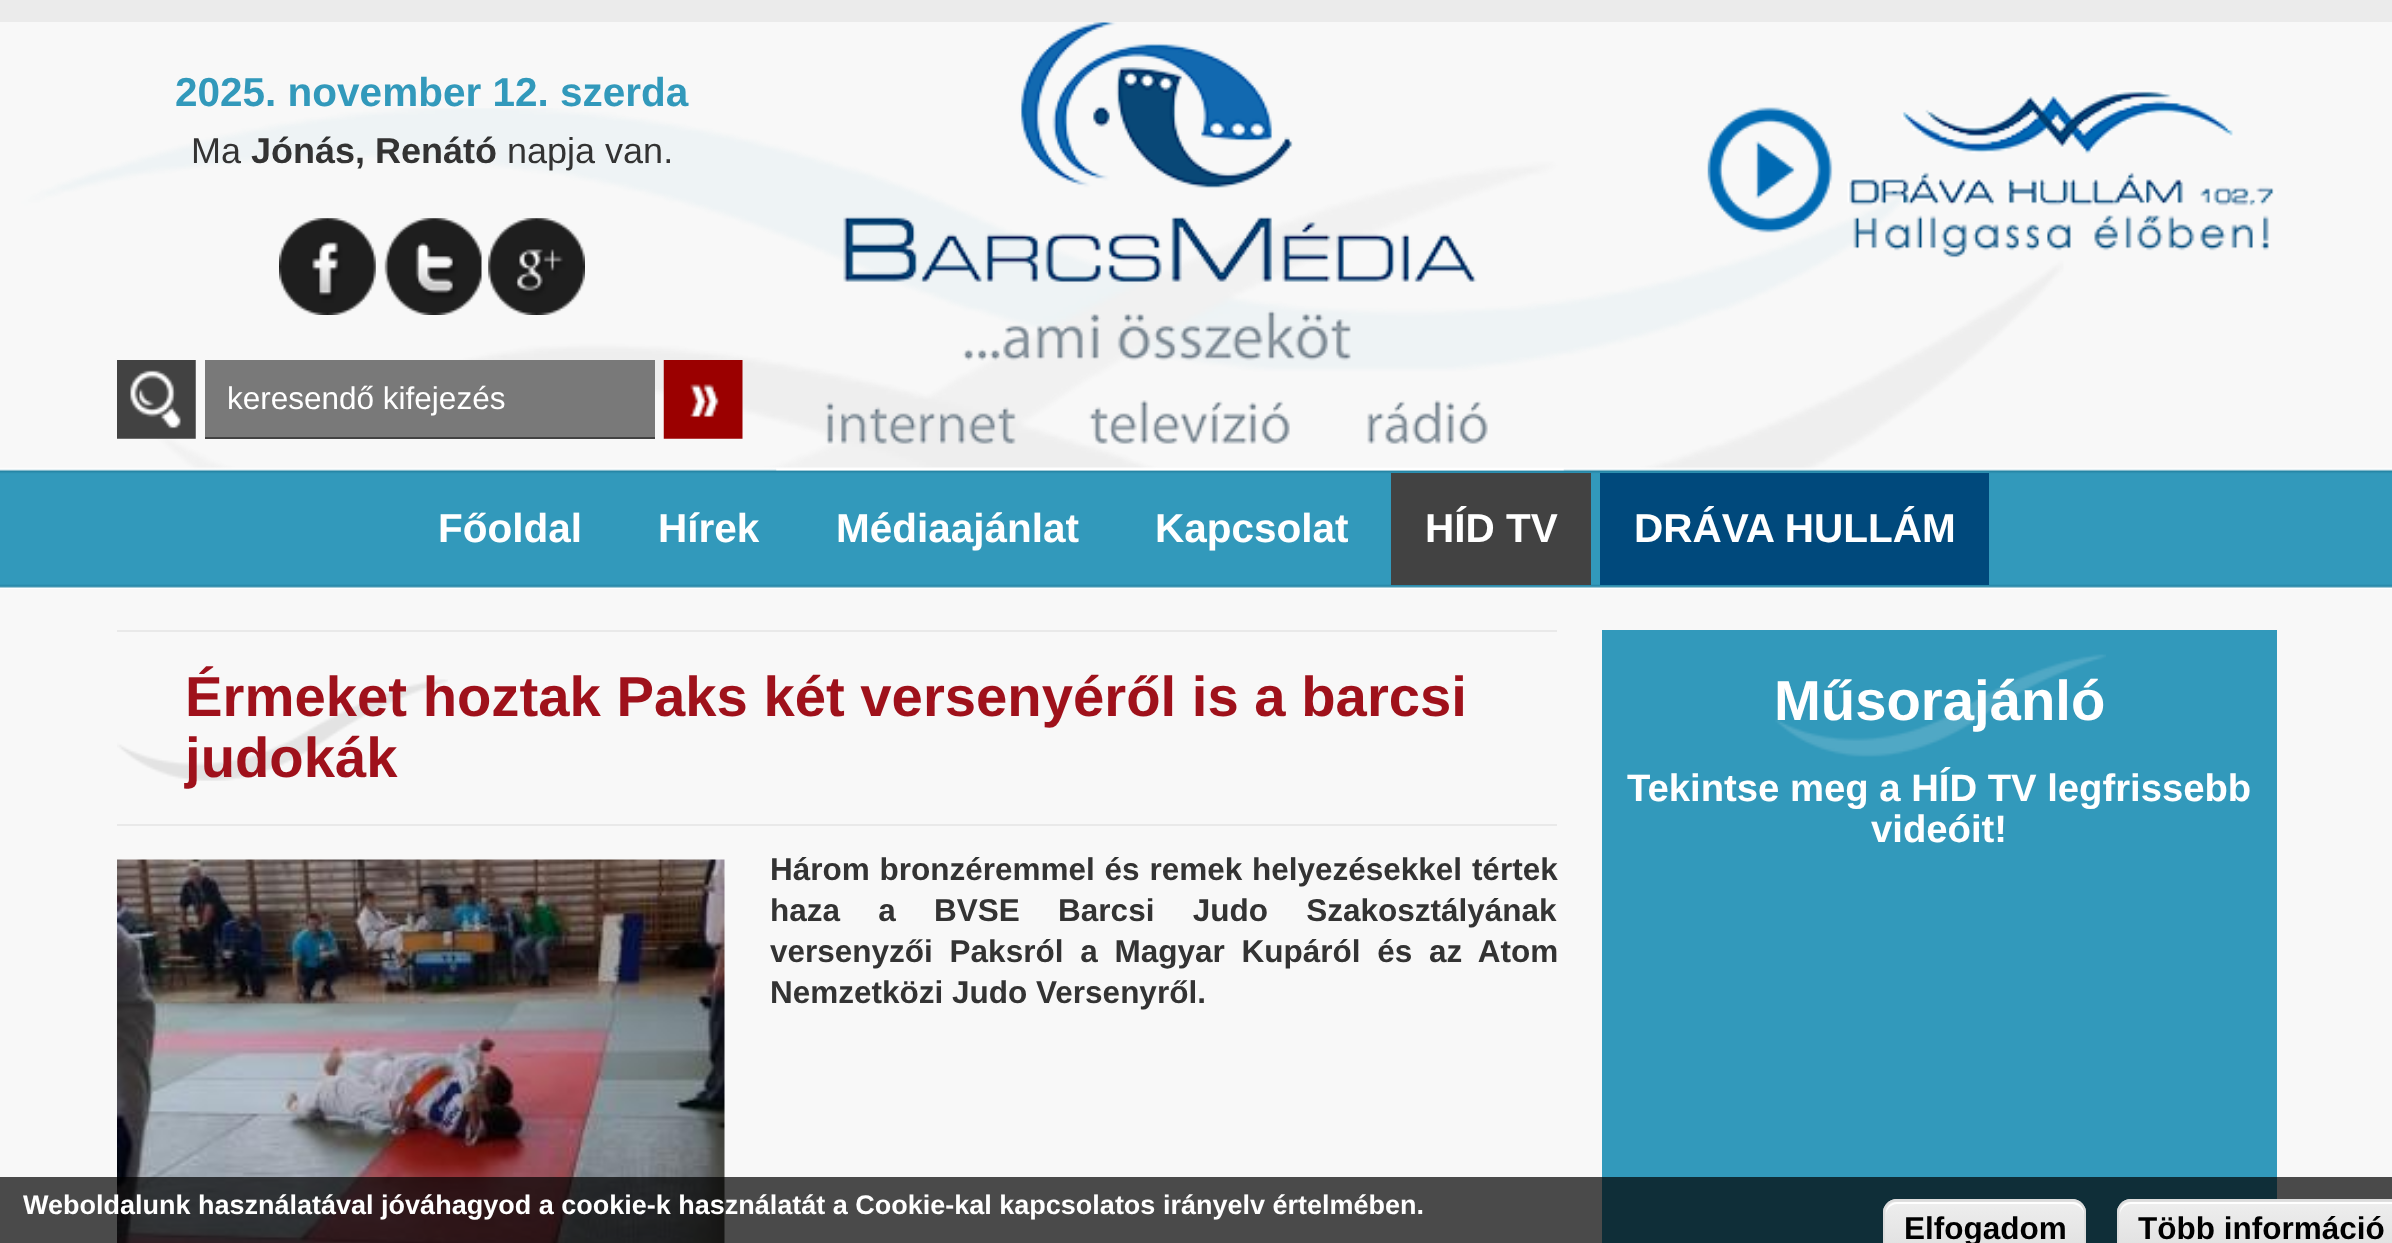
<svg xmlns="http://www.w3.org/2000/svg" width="2392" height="1243">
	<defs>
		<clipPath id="clip1"><rect x="1883" y="1199" width="203" height="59" rx="14" /></clipPath>
		<linearGradient id="g1" gradientUnits="userSpaceOnUse" x1="1985" y1="1148" x2="1985" y2="1202"><stop offset="0.05" stop-color="#EDEDED" /><stop offset="1" stop-color="#DFDFDF" /></linearGradient>
		<linearGradient id="g2" gradientUnits="userSpaceOnUse" x1="1985" y1="1202" x2="1985" y2="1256"><stop offset="0.05" stop-color="#EDEDED" /><stop offset="1" stop-color="#DFDFDF" /></linearGradient>
		<clipPath id="clip2"><rect x="2117" y="1199" width="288" height="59" rx="14" /></clipPath>
		<linearGradient id="g3" gradientUnits="userSpaceOnUse" x1="2261" y1="1148" x2="2261" y2="1202"><stop offset="0.05" stop-color="#EDEDED" /><stop offset="1" stop-color="#DFDFDF" /></linearGradient>
		<linearGradient id="g4" gradientUnits="userSpaceOnUse" x1="2261" y1="1202" x2="2261" y2="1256"><stop offset="0.05" stop-color="#EDEDED" /><stop offset="1" stop-color="#DFDFDF" /></linearGradient>
	</defs>
	<rect width="100%" height="100%" fill="#EBEBEB" />
	<rect x="0" y="22" width="2392" height="1221" fill="#F8F8F8" />
	<image x="0" y="108" width="2392" height="481" href="assets/img1.png" />
	<text x="175" y="106" font-family="Liberation Sans" font-size="40.5" font-weight="700" fill="#3299BB">2025. november 12. szerda</text>
	<text x="191" y="163" font-family="Liberation Sans" font-size="36" fill="#333333">Ma</text>
	<text x="251" y="163" font-family="Liberation Sans" font-size="36" font-weight="700" fill="#333333">Jónás, Renátó</text>
	<text x="507" y="163" font-family="Liberation Sans" font-size="36" fill="#333333">napja van.</text>
	<image x="1707" y="90" width="570" height="168" href="assets/img2.png" />
	<image x="279" y="218" width="97" height="97" href="assets/img3.png" />
	<image x="384" y="218" width="98" height="97" href="assets/img4.png" />
	<image x="488" y="218" width="97" height="97" href="assets/img5.png" />
	<image x="117" y="360" width="79" height="79" href="assets/img6.png" />
	<rect x="205" y="360" width="450" height="77" fill="#797979" />
	<rect x="205" y="437" width="450" height="2" fill="#424242" />
	<text x="227" y="409" font-family="Liberation Sans" font-size="31.5" fill="#FFFFFF">keresendő kifejezés</text>
	<image x="663" y="360" width="80" height="79" href="assets/img7.png" />
	<image x="776" y="22" width="788" height="449" href="assets/img8.png" />
	<g font-family="Liberation Sans" font-size="40.5" font-weight="700" fill="#FFFFFF">
		<text x="438" y="542">Főoldal</text>
		<text x="658" y="542">Hírek</text>
		<text x="836" y="542">Médiaajánlat</text>
		<text x="1155" y="542">Kapcsolat</text>
	</g>
	<rect x="1391" y="473" width="200" height="112" fill="#424242" />
	<text x="1425" y="542" font-family="Liberation Sans" font-size="40.5" font-weight="700" fill="#FFFFFF">HÍD TV</text>
	<rect x="1600" y="473" width="389" height="112" fill="#00497C" />
	<text x="1634" y="542" font-family="Liberation Sans" font-size="40.5" font-weight="700" fill="#FFFFFF">DRÁVA HULLÁM</text>
	<image x="117" y="679" width="331" height="102" href="assets/img9.png" />
	<rect x="117" y="630" width="1440" height="2" fill="#E9E9E9" />
	<rect x="117" y="824" width="1440" height="2" fill="#E9E9E9" />
	<g font-family="Liberation Sans" font-size="56.25" font-weight="700" fill="#9F111B">
		<text x="185" y="716">Érmeket hoztak Paks két versenyéről is a barcsi</text>
		<text x="185" y="777">judokák</text>
	</g>
	<image x="117" y="859" width="608" height="384" href="assets/img10.png" />
	<g font-family="Liberation Sans" font-size="31.5" font-weight="700" fill="#333333">
		<text x="770" y="880" word-spacing="1">Három bronzéremmel és remek helyezésekkel tértek</text>
		<text x="770" y="921" word-spacing="29.5">haza a BVSE Barcsi Judo Szakosztályának</text>
		<text x="770" y="962" word-spacing="8">versenyzői Paksról a Magyar Kupáról és az Atom</text>
		<text x="770" y="1003">Nemzetközi Judo Versenyről.</text>
	</g>
	<rect x="1602" y="630" width="675" height="613" fill="#3299BB" />
	<image x="1775" y="654" width="331" height="103" href="assets/img11.png" />
	<text x="1774" y="720" font-family="Liberation Sans" font-size="56.25" font-weight="700" fill="#FFFFFF">Műsorajánló</text>
	<g font-family="Liberation Sans" font-size="38.25" font-weight="700" fill="#FFFFFF">
		<text x="1627" y="801">Tekintse meg a HÍD TV legfrissebb</text>
		<text x="1871" y="842">videóit!</text>
	</g>
	<rect x="0" y="1177" width="2392" height="66" fill="#000000" fill-opacity="0.7" />
	<text x="23" y="1214" font-family="Liberation Sans" font-size="27" font-weight="700" fill="#FFFFFF">Weboldalunk használatával jóváhagyod a cookie-k használatát a Cookie-kal kapcsolatos irányelv értelmében.</text>
	<g clip-path="url(#clip1)">
		<rect x="1883" y="1199" width="203" height="3" fill="url(#g1)" />
		<rect x="1883" y="1202" width="203" height="41" fill="url(#g2)" />
	</g>
	<path d="M1897 1204H2072C2078 1204 2084 1209 2084 1215V1213C2084 1207 2079 1202 2073 1202H1897C1891 1202 1886 1207 1886 1213V1215C1886 1209 1891 1204 1897 1204Z" fill="#FFFFFF" />
	<rect x="1884" y="1200" width="201" height="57" rx="13" fill="none" stroke="#DCDCDC" stroke-width="2" />
	<text x="1904" y="1239" font-family="Liberation Sans" font-size="31.5" font-weight="700" fill="#000000">Elfogadom</text>
	<g clip-path="url(#clip2)">
		<rect x="2117" y="1199" width="275" height="3" fill="url(#g3)" />
		<rect x="2117" y="1202" width="275" height="41" fill="url(#g4)" />
	</g>
	<path d="M2131 1204H2392C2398 1204 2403 1209 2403 1215V1213C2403 1207 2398 1202 2392 1202H2131C2125 1202 2120 1207 2120 1213V1215C2120 1209 2125 1204 2131 1204Z" fill="#FFFFFF" />
	<rect x="2118" y="1200" width="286" height="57" rx="13" fill="none" stroke="#DCDCDC" stroke-width="2" />
	<text x="2138" y="1239" font-family="Liberation Sans" font-size="31.5" font-weight="700" fill="#000000">Több információ</text>
</svg>
